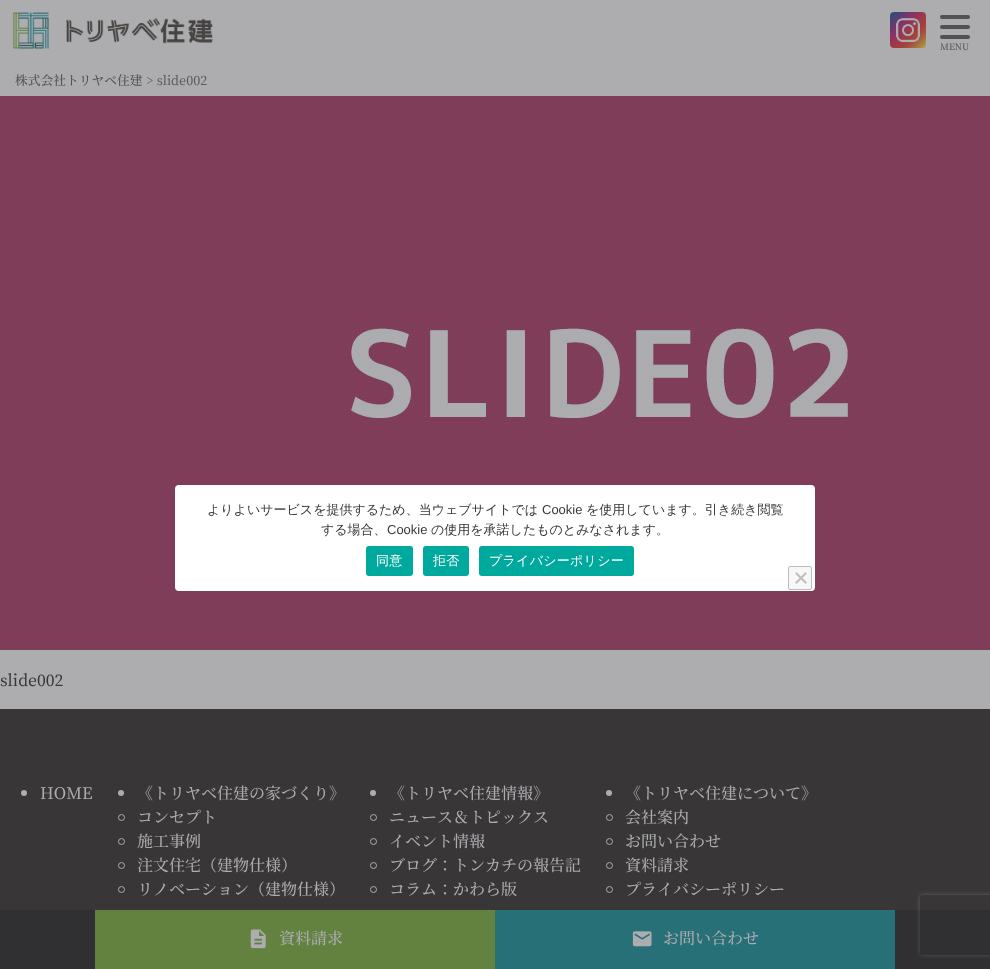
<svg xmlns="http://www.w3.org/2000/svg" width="990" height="969">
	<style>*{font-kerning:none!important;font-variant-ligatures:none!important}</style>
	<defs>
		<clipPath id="clip1"><path d="M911 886H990V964H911ZM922 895H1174C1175 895 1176 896 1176 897V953C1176 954 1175 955 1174 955H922C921 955 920 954 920 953V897C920 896 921 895 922 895Z" clip-rule="evenodd" /></clipPath>
	</defs>
	<rect width="100%" height="100%" fill="#ADADB0" />
	<image x="13" y="12" width="200" height="37" href="assets/img1.png" />
	<image x="890" y="12" width="36" height="36" href="assets/img2.png" />
	<rect x="940" y="15" width="30" height="4" rx="2" fill="#515154" />
	<rect x="940" y="25" width="30" height="4" rx="2" fill="#515154" />
	<rect x="940" y="35" width="30" height="4" rx="2" fill="#515154" />
	<text x="940" y="50" font-family="Noto Serif JP" font-size="9" font-weight="500" fill="#515154">MENU</text>
	<text x="15" y="85" font-family="Noto Serif JP" font-size="12.75" font-weight="500" fill="#515154">株式会社トリヤベ住建</text>
	<text x="146" y="85" font-family="Noto Serif JP" font-size="12.75" font-weight="500" fill="#5B5B5F">&gt; slide002</text>
	<image x="0" y="96" width="990" height="554" href="assets/img3.png" />
	<rect x="175" y="485" width="640" height="106" rx="4" fill="#FFFFFF" />
	<text x="207" y="514" font-family="WenQuanYi Zen Hei" font-size="13" font-weight="500" fill="#383637">よりよいサービスを提供するため、当ウェブサイトでは</text>
	<text x="542" y="514" font-family="Liberation Sans" font-size="13" fill="#383637">Cookie</text>
	<g font-family="WenQuanYi Zen Hei" font-size="13" font-weight="500" fill="#383637">
		<text x="586" y="514">を使用しています。引き続き閲覧</text>
		<text x="321" y="534">する場合、</text>
	</g>
	<text x="387" y="534" font-family="Liberation Sans" font-size="13" fill="#383637">Cookie</text>
	<text x="431" y="534" font-family="WenQuanYi Zen Hei" font-size="13" font-weight="500" fill="#383637">の使用を承諾したものとみなされます。</text>
	<rect x="366" y="546" width="47" height="30" rx="3" fill="#00A99D" />
	<text x="376" y="565" font-family="WenQuanYi Zen Hei" font-size="13" font-weight="500" letter-spacing="0.25" fill="#FFFFFF">同意</text>
	<rect x="423" y="546" width="46" height="30" rx="3" fill="#00A99D" />
	<text x="433" y="565" font-family="WenQuanYi Zen Hei" font-size="13" font-weight="500" letter-spacing="0.25" fill="#FFFFFF">拒否</text>
	<rect x="479" y="546" width="155" height="30" rx="3" fill="#00A99D" />
	<text x="489" y="565" font-family="WenQuanYi Zen Hei" font-size="13" font-weight="500" letter-spacing="0.25" fill="#FFFFFF">プライバシーポリシー</text>
	<rect x="788.5" y="566.5" width="23" height="23" rx="1.5" fill="#F7F7F7" stroke="#BBBBBB" />
	<path d="M805.5 572L807 573.5L796.5 584L795 582.5Z" fill="#C0C0C0" />
	<path d="M795 573.5L796.5 572L807 582.5L805.5 584Z" fill="#C0C0C0" />
	<text x="0" y="686" font-family="Noto Serif JP" font-size="16" font-weight="500" fill="#383637">slide002</text>
	<rect x="0" y="709" width="990" height="260" fill="#383637" />
	<circle cx="24" cy="793" r="3" fill="#ADADB0" />
	<text x="40" y="799" font-family="Noto Serif JP" font-size="16" font-weight="500" fill="#ADADB0">HOME</text>
	<circle cx="121" cy="793" r="3" fill="#ADADB0" />
	<text x="137" y="799" font-family="Noto Serif JP" font-size="16" font-weight="500" fill="#ADADB0">《トリヤベ住建の家づくり》</text>
	<circle cx="121.5" cy="817.5" r="3" fill="none" stroke="#ADADB0" />
	<text x="137" y="823" font-family="Noto Serif JP" font-size="16" font-weight="500" fill="#ADADB0">コンセプト</text>
	<circle cx="121.5" cy="841.5" r="3" fill="none" stroke="#ADADB0" />
	<text x="137" y="847" font-family="Noto Serif JP" font-size="16" font-weight="500" fill="#ADADB0">施工事例</text>
	<circle cx="121.5" cy="865.5" r="3" fill="none" stroke="#ADADB0" />
	<text x="137" y="871" font-family="Noto Serif JP" font-size="16" font-weight="500" fill="#ADADB0">注文住宅（建物仕様）</text>
	<circle cx="121.5" cy="889.5" r="3" fill="none" stroke="#ADADB0" />
	<text x="137" y="895" font-family="Noto Serif JP" font-size="16" font-weight="500" fill="#ADADB0">リノベーション（建物仕様）</text>
	<circle cx="373" cy="793" r="3" fill="#ADADB0" />
	<text x="389" y="799" font-family="Noto Serif JP" font-size="16" font-weight="500" fill="#ADADB0">《トリヤベ住建情報》</text>
	<circle cx="373.5" cy="817.5" r="3" fill="none" stroke="#ADADB0" />
	<text x="389" y="823" font-family="Noto Serif JP" font-size="16" font-weight="500" fill="#ADADB0">ニュース＆トピックス</text>
	<circle cx="373.5" cy="841.5" r="3" fill="none" stroke="#ADADB0" />
	<text x="389" y="847" font-family="Noto Serif JP" font-size="16" font-weight="500" fill="#ADADB0">イベント情報</text>
	<circle cx="373.5" cy="865.5" r="3" fill="none" stroke="#ADADB0" />
	<text x="389" y="871" font-family="Noto Serif JP" font-size="16" font-weight="500" fill="#ADADB0">ブログ：トンカチの報告記</text>
	<circle cx="373.5" cy="889.5" r="3" fill="none" stroke="#ADADB0" />
	<text x="389" y="895" font-family="Noto Serif JP" font-size="16" font-weight="500" fill="#ADADB0">コラム：かわら版</text>
	<circle cx="609" cy="793" r="3" fill="#ADADB0" />
	<text x="625" y="799" font-family="Noto Serif JP" font-size="16" font-weight="500" fill="#ADADB0">《トリヤベ住建について》</text>
	<circle cx="609.5" cy="817.5" r="3" fill="none" stroke="#ADADB0" />
	<text x="625" y="823" font-family="Noto Serif JP" font-size="16" font-weight="500" fill="#ADADB0">会社案内</text>
	<circle cx="609.5" cy="841.5" r="3" fill="none" stroke="#ADADB0" />
	<text x="625" y="847" font-family="Noto Serif JP" font-size="16" font-weight="500" fill="#ADADB0">お問い合わせ</text>
	<circle cx="609.5" cy="865.5" r="3" fill="none" stroke="#ADADB0" />
	<text x="625" y="871" font-family="Noto Serif JP" font-size="16" font-weight="500" fill="#ADADB0">資料請求</text>
	<circle cx="609.5" cy="889.5" r="3" fill="none" stroke="#ADADB0" />
	<text x="625" y="895" font-family="Noto Serif JP" font-size="16" font-weight="500" fill="#ADADB0">プライバシーポリシー</text>
	<g clip-path="url(#clip1)">
		<rect x="920" y="895" width="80" height="60" rx="2" fill="#616164" filter="blur(2.5px)" />
	</g>
	<rect x="0" y="910" width="990" height="59" fill="#141417" fill-opacity="0.2" />
	<rect x="95" y="910" width="400" height="59" fill="#638240" />
	<image x="250" y="929" width="16" height="20" href="assets/img4.png" />
	<text x="279" y="944" font-family="Noto Serif JP" font-size="16" font-weight="500" fill="#ADADB0">資料請求</text>
	<rect x="495" y="910" width="400" height="59" fill="#277077" />
	<image x="632" y="931" width="20" height="16" href="assets/img5.png" />
	<text x="663" y="944" font-family="Noto Serif JP" font-size="16" font-weight="500" fill="#ADADB0">お問い合わせ</text>
</svg>
